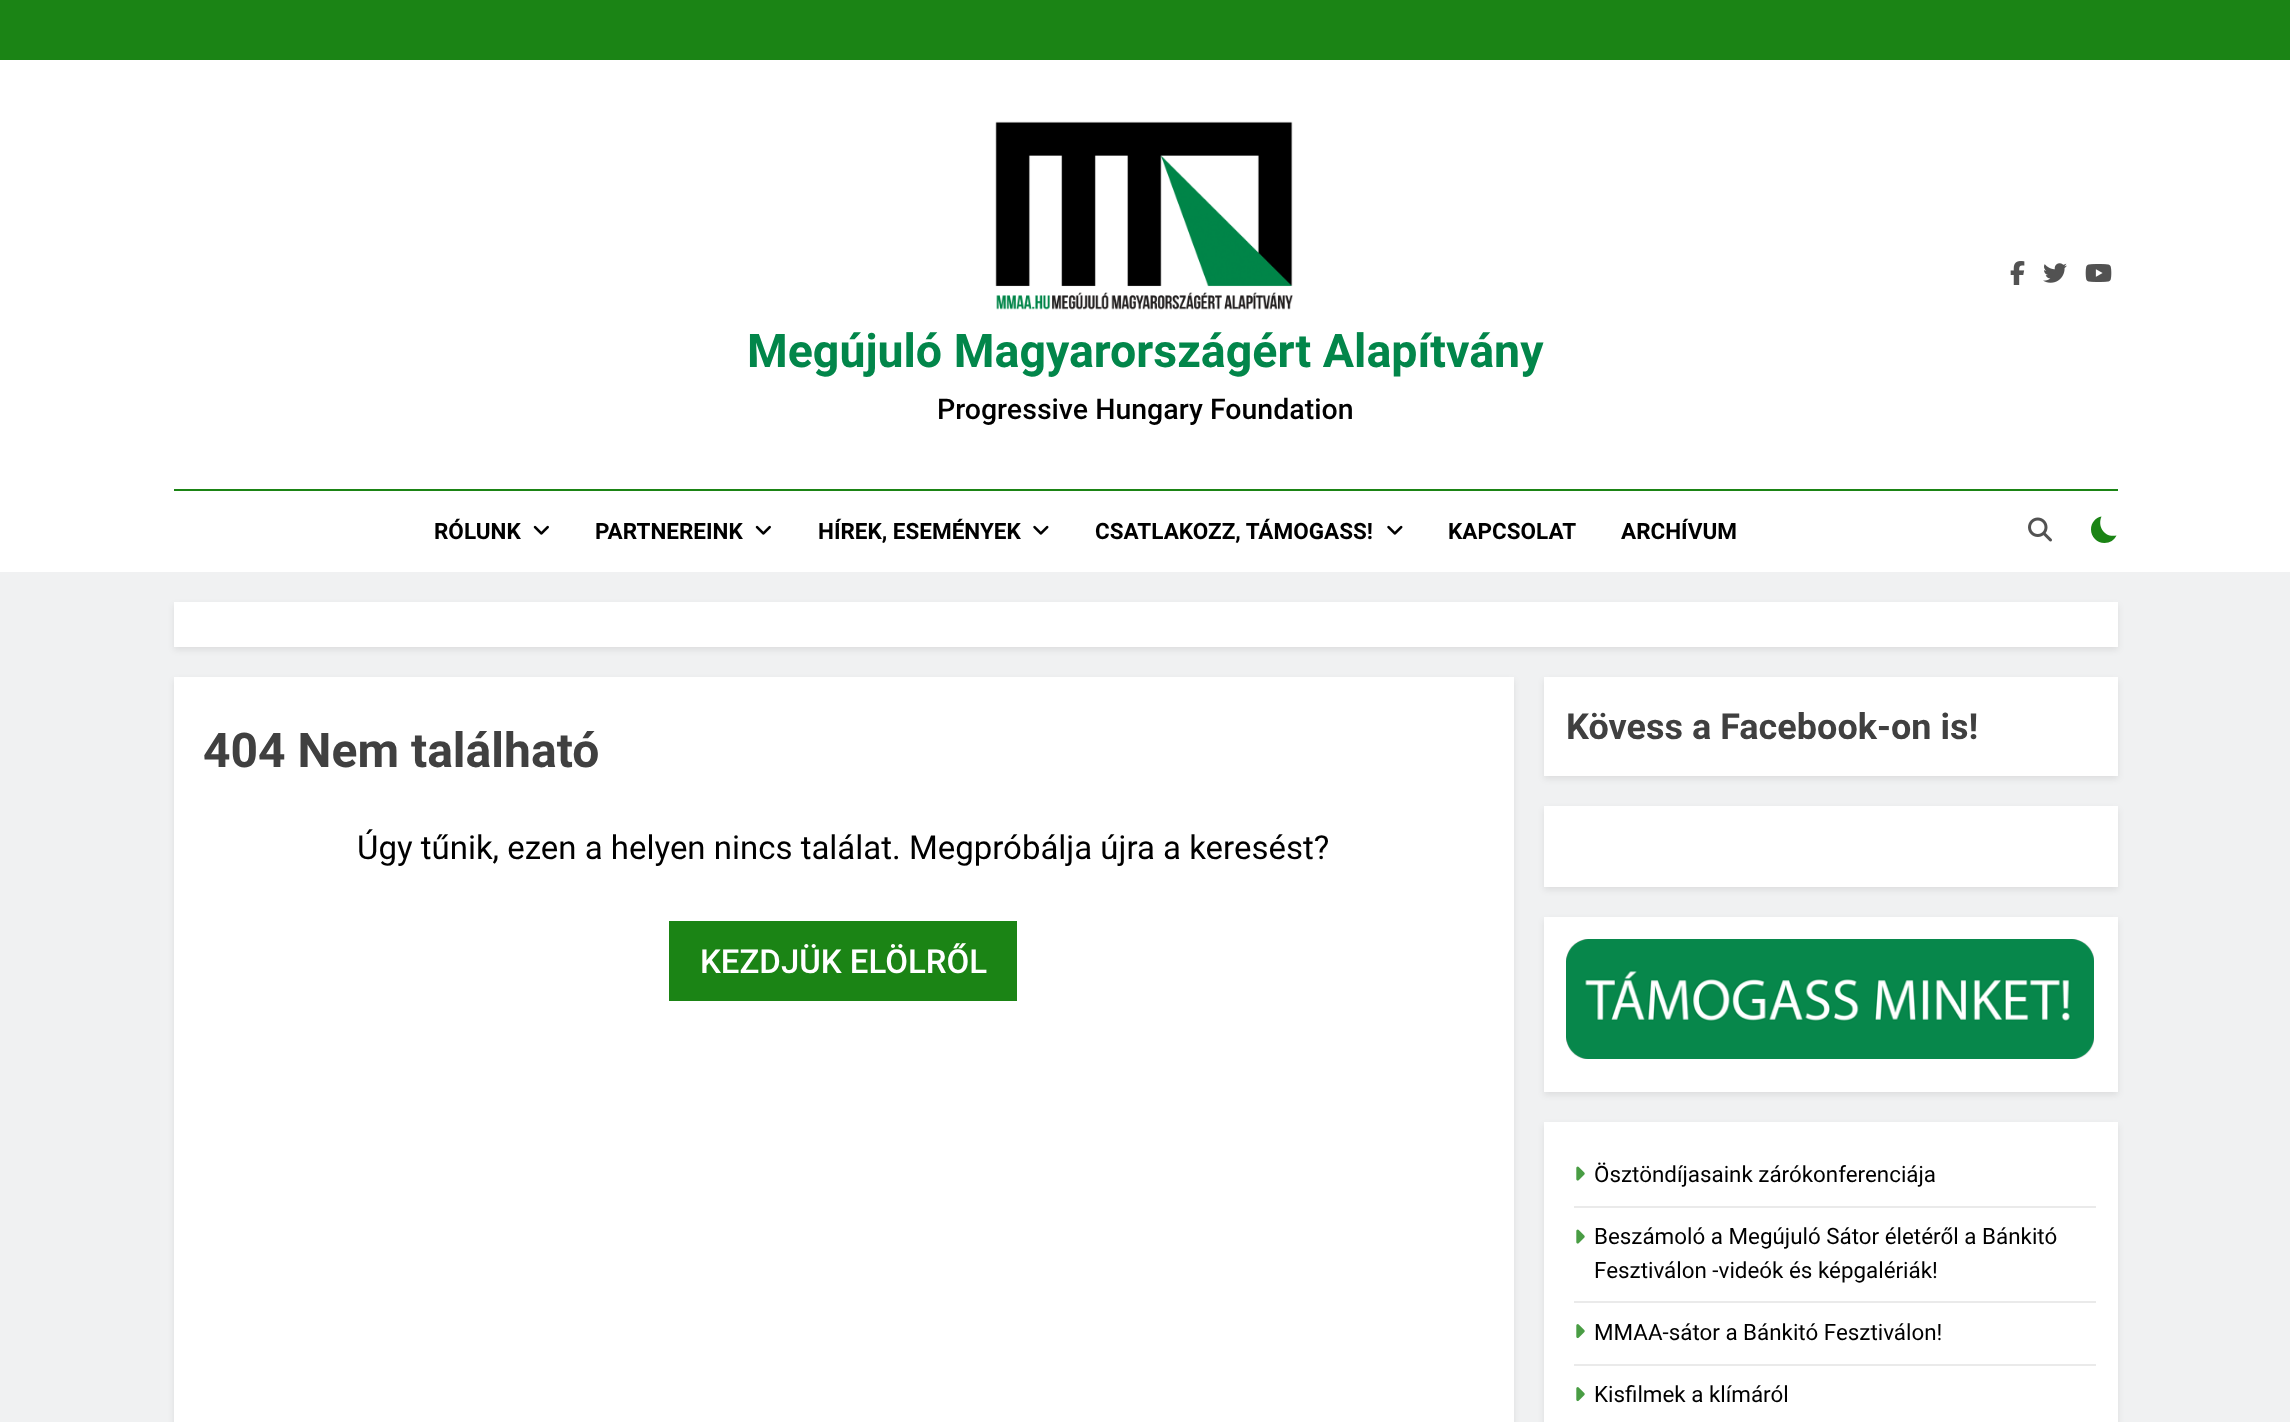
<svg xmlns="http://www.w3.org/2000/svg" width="2290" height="1422">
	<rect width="100%" height="100%" fill="#F0F1F2" />
	<rect x="0" y="0" width="2290" height="60" fill="#1B8415" />
	<rect x="0" y="60" width="2290" height="512" fill="#FFFFFF" />
	<image x="2010" y="261" width="15" height="24" href="assets/img1.png" />
	<image x="2043" y="263" width="24" height="20" href="assets/img2.png" />
	<image x="2085" y="264" width="27" height="18" href="assets/img3.png" />
	<image x="995" y="121" width="298" height="189" href="assets/img4.png" />
	<text x="747" y="367" font-family="Roboto" font-size="46.5" font-weight="700" fill="#02864A">Megújuló Magyarországért Alapítvány</text>
	<text x="937" y="419" font-family="Roboto" font-size="28.5" font-weight="500" fill="#000000">Progressive Hungary Foundation</text>
	<rect x="174" y="489" width="1944" height="2" fill="#1B8415" />
	<text x="434" y="539" font-family="Roboto" font-size="22.5" font-weight="700" fill="#000000">RÓLUNK</text>
	<image x="533" y="525" width="16" height="10" href="assets/img5.png" />
	<text x="595" y="539" font-family="Roboto" font-size="22.5" font-weight="700" fill="#000000">PARTNEREINK</text>
	<image x="755" y="525" width="16" height="10" href="assets/img5.png" />
	<text x="818" y="539" font-family="Roboto" font-size="22.5" font-weight="700" fill="#000000">HÍREK, ESEMÉNYEK</text>
	<image x="1033" y="525" width="16" height="10" href="assets/img6.png" />
	<text x="1095" y="539" font-family="Roboto" font-size="22.5" font-weight="700" fill="#000000">CSATLAKOZZ, TÁMOGASS!</text>
	<image x="1387" y="525" width="16" height="10" href="assets/img6.png" />
	<g font-family="Roboto" font-size="22.5" font-weight="700" fill="#000000">
		<text x="1448" y="539">KAPCSOLAT</text>
		<text x="1621" y="539">ARCHÍVUM</text>
	</g>
	<image x="2028" y="517" width="24" height="25" href="assets/img7.png" />
	<path d="M2116.5 535.5C2105 538 2097 527 2101.5 516.5C2095.5 517.5 2091 523 2091 529.5C2091 537 2097 543 2104.5 543C2110 543 2114.5 540 2116.5 535.5Z" fill="#1B8415" />
	<rect x="174" y="605" width="1944" height="45" fill="#000000" fill-opacity="0.08" filter="blur(3px)" />
	<rect x="174" y="602" width="1944" height="45" fill="#FFFFFF" />
	<rect x="174" y="680" width="1340" height="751" fill="#000000" fill-opacity="0.08" filter="blur(3px)" />
	<rect x="174" y="677" width="1340" height="745" fill="#FFFFFF" />
	<text x="203" y="767" font-family="Roboto" font-size="48" font-weight="700" fill="#404040">404 Nem található</text>
	<text x="357" y="859" font-family="Roboto" font-size="33" fill="#000000">Úgy tűnik, ezen a helyen nincs találat. Megpróbálja újra a keresést?</text>
	<rect x="669" y="921" width="348" height="80" fill="#1B8415" />
	<text x="700" y="973" font-family="Roboto" font-size="33" font-weight="500" fill="#FFFFFF">KEZDJÜK ELÖLRŐL</text>
	<rect x="1544" y="680" width="574" height="99" fill="#000000" fill-opacity="0.08" filter="blur(3px)" />
	<rect x="1544" y="677" width="574" height="99" fill="#FFFFFF" />
	<text x="1566" y="739" font-family="Roboto" font-size="36" font-weight="700" fill="#404040">Kövess a Facebook-on is!</text>
	<rect x="1544" y="809" width="574" height="81" fill="#000000" fill-opacity="0.08" filter="blur(3px)" />
	<rect x="1544" y="806" width="574" height="81" fill="#FFFFFF" />
	<rect x="1544" y="920" width="574" height="175" fill="#000000" fill-opacity="0.08" filter="blur(3px)" />
	<rect x="1544" y="917" width="574" height="175" fill="#FFFFFF" />
	<image x="1566" y="939" width="528" height="120" href="assets/img8.png" />
	<rect x="1544" y="1125" width="574" height="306" fill="#000000" fill-opacity="0.08" filter="blur(3px)" />
	<rect x="1544" y="1122" width="574" height="300" fill="#FFFFFF" />
	<rect x="1574" y="1206" width="522" height="2" fill="#EAEAEA" />
	<image x="1576" y="1166" width="9" height="15" href="assets/img9.png" />
	<text x="1594" y="1182" font-family="Roboto" font-size="22.4" fill="#000000">Ösztöndíjasaink zárókonferenciája</text>
	<rect x="1574" y="1301" width="522" height="2" fill="#EAEAEA" />
	<image x="1576" y="1229" width="9" height="15" href="assets/img9.png" />
	<g font-family="Roboto" font-size="22.4" fill="#000000">
		<text x="1594" y="1244">Beszámoló a Megújuló Sátor életéről a Bánkitó</text>
		<text x="1594" y="1278">Fesztiválon -videók és képgalériák!</text>
	</g>
	<rect x="1574" y="1364" width="522" height="2" fill="#EAEAEA" />
	<image x="1576" y="1324" width="9" height="15" href="assets/img10.png" />
	<text x="1594" y="1340" font-family="Roboto" font-size="22.4" fill="#000000">MMAA-sátor a Bánkitó Fesztiválon!</text>
	<image x="1576" y="1387" width="9" height="15" href="assets/img10.png" />
	<text x="1594" y="1402" font-family="Roboto" font-size="22.4" fill="#000000">Kisfilmek a klímáról</text>
</svg>
